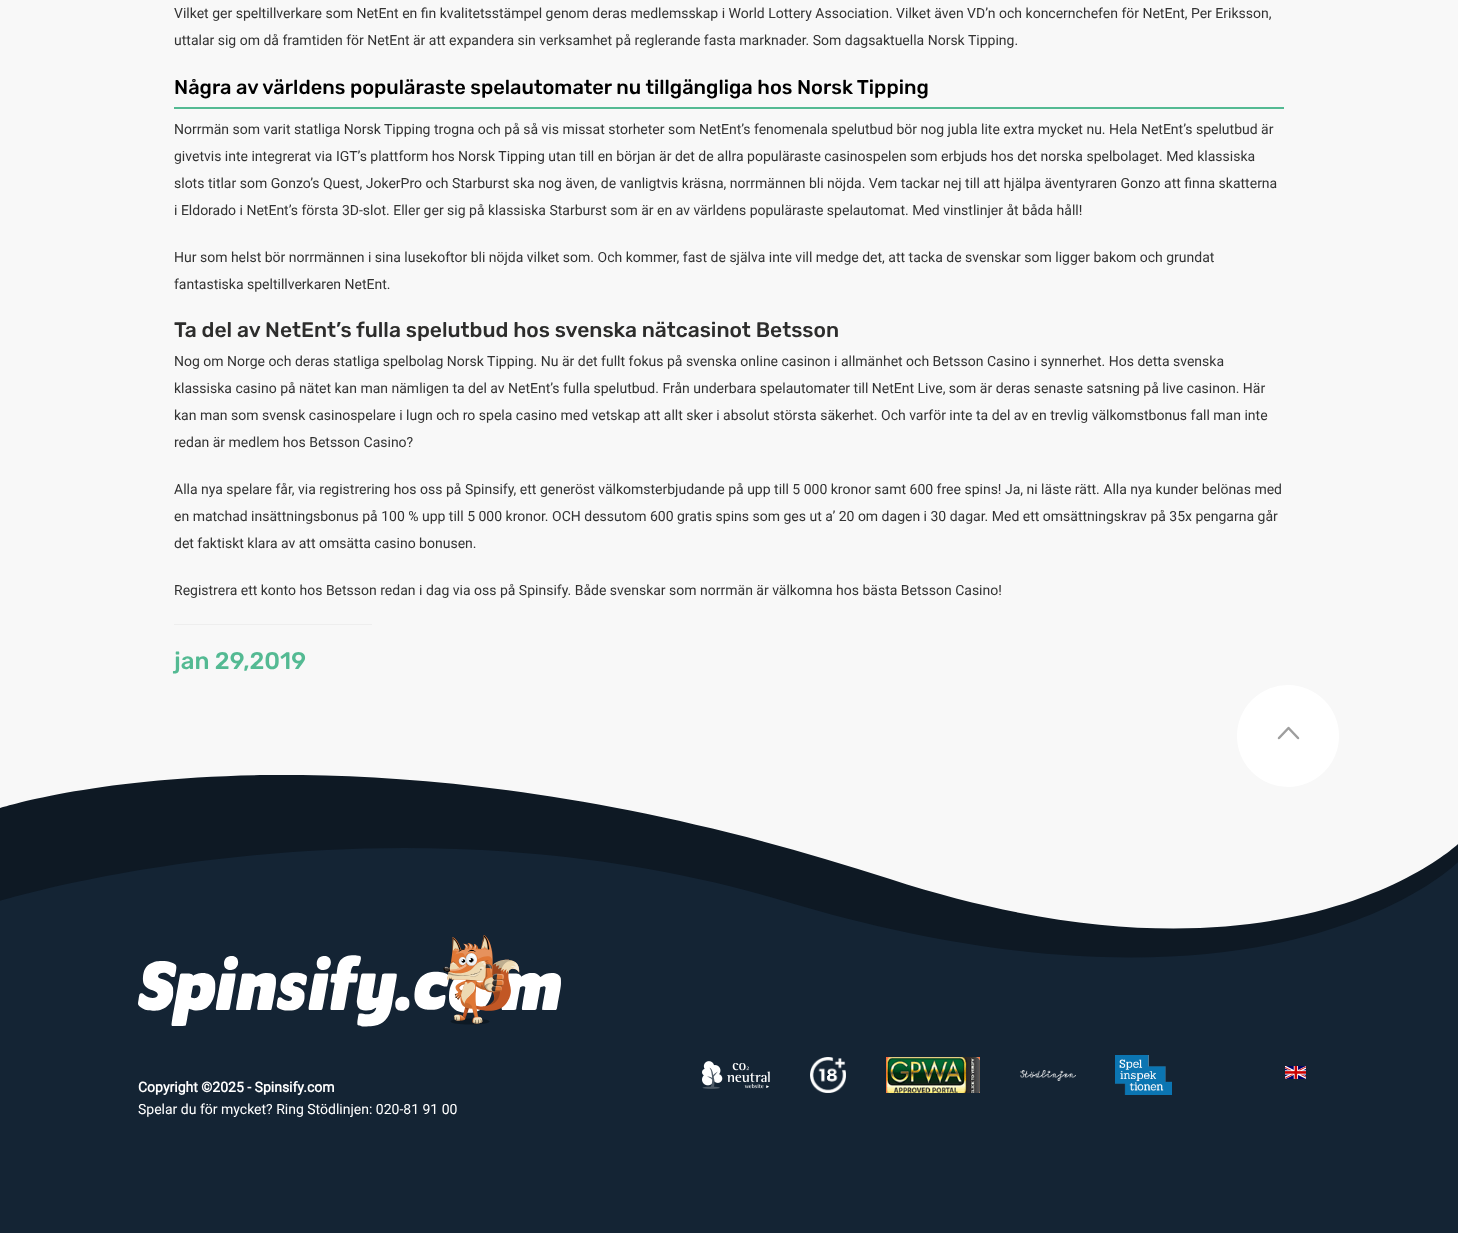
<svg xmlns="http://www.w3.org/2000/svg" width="1458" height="1233">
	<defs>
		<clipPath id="clip1"><rect x="0" y="775" width="1458" height="458" /></clipPath>
	</defs>
	<rect width="100%" height="100%" fill="#F8F8F8" />
	<g font-family="Roboto" font-size="14" fill="#333333">
		<text x="174" y="18">Vilket ger speltillverkare som NetEnt en fin kvalitetsstämpel genom deras medlemsskap i World Lottery Association. Vilket även VD’n och koncernchefen för NetEnt, Per Eriksson,</text>
		<text x="174" y="45">uttalar sig om då framtiden för NetEnt är att expandera sin verksamhet på reglerande fasta marknader. Som dagsaktuella Norsk Tipping.</text>
	</g>
	<text x="174" y="94" font-family="Rubik" font-size="20" font-weight="500" fill="#000000">Några av världens populäraste spelautomater nu tillgängliga hos Norsk Tipping</text>
	<rect x="174" y="107" width="1110" height="2" fill="#54BA93" />
	<g font-family="Roboto" font-size="14" fill="#333333">
		<text x="174" y="134">Norrmän som varit statliga Norsk Tipping trogna och på så vis missat storheter som NetEnt’s fenomenala spelutbud bör nog jubla lite extra mycket nu. Hela NetEnt’s spelutbud är</text>
		<text x="174" y="161">givetvis inte integrerat via IGT’s plattform hos Norsk Tipping utan till en början är det de allra populäraste casinospelen som erbjuds hos det norska spelbolaget. Med klassiska</text>
		<text x="174" y="188">slots titlar som Gonzo’s Quest, JokerPro och Starburst ska nog även, de vanligtvis kräsna, norrmännen bli nöjda. Vem tackar nej till att hjälpa äventyraren Gonzo att finna skatterna</text>
		<text x="174" y="215">i Eldorado i NetEnt’s första 3D-slot. Eller ger sig på klassiska Starburst som är en av världens populäraste spelautomat. Med vinstlinjer åt båda håll!</text>
		<text x="174" y="262">Hur som helst bör norrmännen i sina lusekoftor bli nöjda vilket som. Och kommer, fast de själva inte vill medge det, att tacka de svenskar som ligger bakom och grundat</text>
		<text x="174" y="289">fantastiska speltillverkaren NetEnt.</text>
	</g>
	<text x="174" y="337" font-family="Rubik" font-size="21" font-weight="500" fill="#2D2D2C">Ta del av NetEnt’s fulla spelutbud hos svenska nätcasinot Betsson</text>
	<g font-family="Roboto" font-size="14" fill="#333333">
		<text x="174" y="366">Nog om Norge och deras statliga spelbolag Norsk Tipping. Nu är det fullt fokus på svenska online casinon i allmänhet och Betsson Casino i synnerhet. Hos detta svenska</text>
		<text x="174" y="393">klassiska casino på nätet kan man nämligen ta del av NetEnt’s fulla spelutbud. Från underbara spelautomater till NetEnt Live, som är deras senaste satsning på live casinon. Här</text>
		<text x="174" y="420">kan man som svensk casinospelare i lugn och ro spela casino med vetskap att allt sker i absolut största säkerhet. Och varför inte ta del av en trevlig välkomstbonus fall man inte</text>
		<text x="174" y="447">redan är medlem hos Betsson Casino?</text>
		<text x="174" y="494">Alla nya spelare får, via registrering hos oss på Spinsify, ett generöst välkomsterbjudande på upp till 5 000 kronor samt 600 free spins! Ja, ni läste rätt. Alla nya kunder belönas med</text>
		<text x="174" y="521">en matchad insättningsbonus på 100 % upp till 5 000 kronor. OCH dessutom 600 gratis spins som ges ut a’ 20 om dagen i 30 dagar. Med ett omsättningskrav på 35x pengarna går</text>
		<text x="174" y="548">det faktiskt klara av att omsätta casino bonusen.</text>
		<text x="174" y="595">Registrera ett konto hos Betsson redan i dag via oss på Spinsify. Både svenskar som norrmän är välkomna hos bästa Betsson Casino!</text>
	</g>
	<rect x="174" y="624" width="198" height="1" fill="#EEEEEE" />
	<text x="174" y="669" font-family="Rubik" font-size="24" font-weight="500" fill="#54BA93">jan 29,2019</text>
	<g clip-path="url(#clip1)">
		<path d="M1458 844C1458 844 1287 1008 890 879C336 698 0 808 0 808V1085H1458Z" fill="#0E1924" />
	</g>
	<path d="M1458 862C1458 862 1275 1048 784 901C387 782 0 901 0 901V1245L1458 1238Z" fill="#142434" />
	<circle cx="1288" cy="736" r="51" fill="#FFFFFF" />
	<path d="M1279 738L1288.5 728L1298 738" fill="none" stroke="#9E9E9E" stroke-width="2.5" stroke-linecap="round" stroke-linejoin="round" />
	<image x="702" y="1061" width="68" height="28" href="assets/img1.png" />
	<image x="810" y="1057" width="36" height="36" href="assets/img2.png" />
	<image x="886" y="1057" width="94" height="36" href="assets/img3.png" />
	<image x="1020" y="1070" width="56" height="11" href="assets/img4.png" />
	<image x="1115" y="1055" width="57" height="40" href="assets/img5.png" />
	<image x="1285" y="1066" width="21" height="13" href="assets/img6.png" />
	<image x="138" y="935" width="423" height="92" href="assets/img7.png" />
	<text x="138" y="1092" font-family="Roboto" font-size="14" font-weight="700" fill="#FFFFFF">Copyright ©2025 - Spinsify.com</text>
	<text x="138" y="1114" font-family="Roboto" font-size="14" fill="#FFFFFF">Spelar du för mycket? Ring Stödlinjen: 020-81 91 00</text>
</svg>
